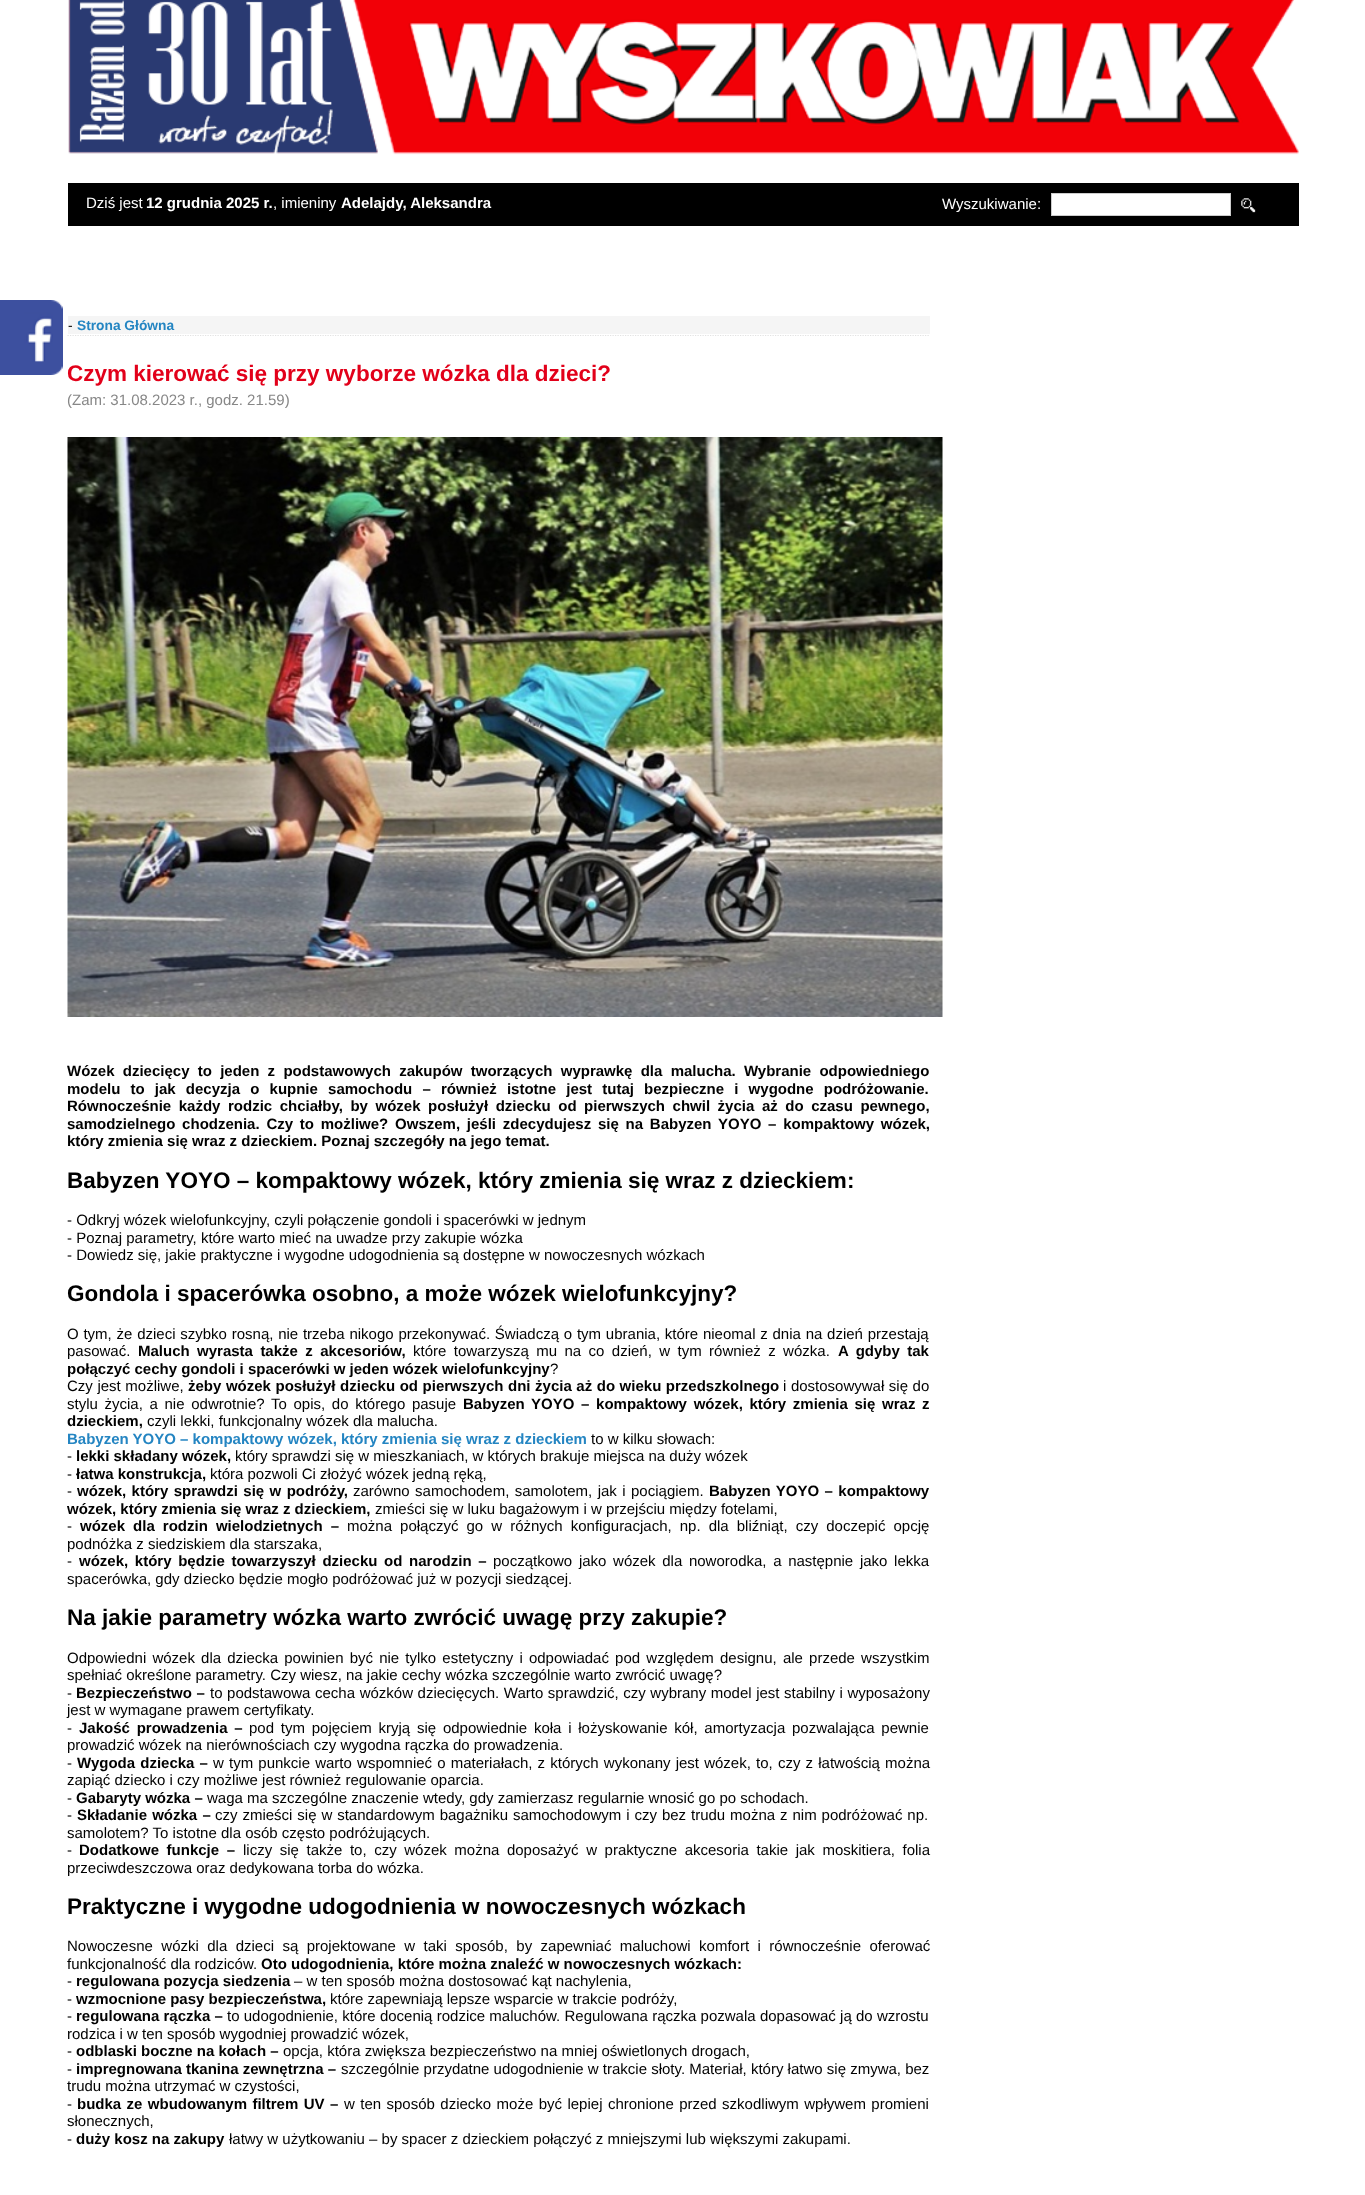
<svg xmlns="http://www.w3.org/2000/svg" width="1365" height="2195">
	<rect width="100%" height="100%" fill="#FFFFFF" />
	<image x="0" y="300" width="63" height="75" href="assets/img1.png" />
	<image x="68" y="0" width="1231" height="155" href="assets/img2.png" />
	<rect x="68" y="183" width="1231" height="43" fill="#000000" />
	<text x="86" y="208" font-family="Liberation Sans" font-size="15" fill="#FFFFFF">Dziś jest</text>
	<text x="146" y="208" font-family="Liberation Sans" font-size="15" font-weight="700" fill="#FFFFFF">12 grudnia 2025 r.</text>
	<text x="273" y="208" font-family="Liberation Sans" font-size="15" fill="#FFFFFF">, imieniny</text>
	<text x="341" y="208" font-family="Liberation Sans" font-size="15" font-weight="700" fill="#FFFFFF">Adelajdy, Aleksandra</text>
	<text x="942" y="209" font-family="Liberation Sans" font-size="15" fill="#FFFFFF">Wyszukiwanie:</text>
	<rect x="1051.5" y="193.5" width="179" height="22" fill="#FFFFFF" stroke="#CCCCCC" />
	<image x="1241" y="198" width="15" height="15" href="assets/img3.png" />
	<path d="M67.5 335.5H930" fill="none" stroke="#E2E2E2" stroke-width="1.2" stroke-dasharray="1.25 1.25" />
	<rect x="68" y="316" width="862" height="18" fill="#F5F5F5" />
	<text x="68" y="330" font-family="Liberation Sans" font-size="13.75" fill="#000000">-</text>
	<text x="77" y="330" font-family="Liberation Sans" font-size="13.75" font-weight="700" fill="#2485C2">Strona Główna</text>
	<text x="67" y="381" font-family="Liberation Sans" font-size="22.5" font-weight="700" fill="#E2001A">Czym kierować się przy wyborze wózka dla dzieci?</text>
	<text x="67" y="405" font-family="Liberation Sans" font-size="15" fill="#878787">(Zam: 31.08.2023 r., godz. 21.59)</text>
	<image x="67" y="437" width="876" height="580" href="assets/img4.png" />
	<g font-family="Liberation Sans" font-size="15" font-weight="700" fill="#000000">
		<text x="67" y="1076" word-spacing="4.1">Wózek dziecięcy to jeden z podstawowych zakupów tworzących wyprawkę dla malucha. Wybranie odpowiedniego</text>
		<text x="67" y="1094" word-spacing="6">modelu to jak decyzja o kupnie samochodu – również istotne jest tutaj bezpieczne i wygodne podróżowanie.</text>
		<text x="67" y="1111" word-spacing="3.4">Równocześnie każdy rodzic chciałby, by wózek posłużył dziecku od pierwszych chwil życia aż do czasu pewnego,</text>
		<text x="67" y="1129" word-spacing="2.6">samodzielnego chodzenia. Czy to możliwe? Owszem, jeśli zdecydujesz się na Babyzen YOYO – kompaktowy wózek,</text>
		<text x="67" y="1146">który zmienia się wraz z dzieckiem. Poznaj szczegóły na jego temat.</text>
	</g>
	<text x="67" y="1188" font-family="Liberation Sans" font-size="22.5" font-weight="700" fill="#000000">Babyzen YOYO – kompaktowy wózek, który zmienia się wraz z dzieckiem:</text>
	<g font-family="Liberation Sans" font-size="15" fill="#000000">
		<text x="67" y="1225">- Odkryj wózek wielofunkcyjny, czyli połączenie gondoli i spacerówki w jednym</text>
		<text x="67" y="1243">- Poznaj parametry, które warto mieć na uwadze przy zakupie wózka</text>
		<text x="67" y="1260">- Dowiedz się, jakie praktyczne i wygodne udogodnienia są dostępne w nowoczesnych wózkach</text>
	</g>
	<text x="67" y="1301" font-family="Liberation Sans" font-size="22.5" font-weight="700" fill="#000000">Gondola i spacerówka osobno, a może wózek wielofunkcyjny?</text>
	<g font-family="Liberation Sans" font-size="15" fill="#000000">
		<text x="67" y="1339" word-spacing="0.6">O tym, że dzieci szybko rosną, nie trzeba nikogo przekonywać. Świadczą o tym ubrania, które nieomal z dnia na dzień przestają</text>
		<text x="67" y="1356">pasować.</text>
	</g>
	<text x="138" y="1356" word-spacing="3.25" font-family="Liberation Sans" font-size="15" font-weight="700" fill="#000000">Maluch wyrasta także z akcesoriów,</text>
	<text x="413" y="1356" word-spacing="3.25" font-family="Liberation Sans" font-size="15" fill="#000000">które towarzyszą mu na co dzień, w tym również z wózka.</text>
	<g font-family="Liberation Sans" font-size="15" font-weight="700" fill="#000000">
		<text x="838" y="1356" word-spacing="3.25">A gdyby tak</text>
		<text x="67" y="1374">połączyć cechy gondoli i spacerówki w jeden wózek wielofunkcyjny</text>
	</g>
	<g font-family="Liberation Sans" font-size="15" fill="#000000">
		<text x="550" y="1374">?</text>
		<text x="67" y="1391" word-spacing="0.4">Czy jest możliwe,</text>
	</g>
	<text x="188" y="1391" word-spacing="0.4" font-family="Liberation Sans" font-size="15" font-weight="700" fill="#000000">żeby wózek posłużył dziecku od pierwszych dni życia aż do wieku przedszkolnego</text>
	<g font-family="Liberation Sans" font-size="15" fill="#000000">
		<text x="783" y="1391" word-spacing="0.4">i dostosowywał się do</text>
		<text x="67" y="1409" word-spacing="2.5">stylu życia, a nie odwrotnie? To opis, do którego pasuje</text>
	</g>
	<g font-family="Liberation Sans" font-size="15" font-weight="700" fill="#000000">
		<text x="463" y="1409" word-spacing="2.5">Babyzen YOYO – kompaktowy wózek, który zmienia się wraz z</text>
		<text x="67" y="1426">dzieckiem,</text>
	</g>
	<text x="147" y="1426" font-family="Liberation Sans" font-size="15" fill="#000000">czyli lekki, funkcjonalny wózek dla malucha.</text>
	<text x="67" y="1444" font-family="Liberation Sans" font-size="15" font-weight="700" fill="#2485C2">Babyzen YOYO – kompaktowy wózek, który zmienia się wraz z dzieckiem</text>
	<g font-family="Liberation Sans" font-size="15" fill="#000000">
		<text x="591" y="1444">to w kilku słowach:</text>
		<text x="67" y="1461">-</text>
	</g>
	<text x="76" y="1461" font-family="Liberation Sans" font-size="15" font-weight="700" fill="#000000">lekki składany wózek,</text>
	<g font-family="Liberation Sans" font-size="15" fill="#000000">
		<text x="235" y="1461">który sprawdzi się w mieszkaniach, w których brakuje miejsca na duży wózek</text>
		<text x="67" y="1479">-</text>
	</g>
	<text x="76" y="1479" font-family="Liberation Sans" font-size="15" font-weight="700" fill="#000000">łatwa konstrukcja,</text>
	<g font-family="Liberation Sans" font-size="15" fill="#000000">
		<text x="210" y="1479">która pozwoli Ci złożyć wózek jedną ręką,</text>
		<text x="67" y="1496">-</text>
	</g>
	<text x="77" y="1496" word-spacing="1.25" font-family="Liberation Sans" font-size="15" font-weight="700" fill="#000000">wózek, który sprawdzi się w podróży,</text>
	<text x="353" y="1496" word-spacing="1.25" font-family="Liberation Sans" font-size="15" fill="#000000">zarówno samochodem, samolotem, jak i pociągiem.</text>
	<g font-family="Liberation Sans" font-size="15" font-weight="700" fill="#000000">
		<text x="709" y="1496" word-spacing="1.25">Babyzen YOYO – kompaktowy</text>
		<text x="67" y="1514">wózek, który zmienia się wraz z dzieckiem,</text>
	</g>
	<g font-family="Liberation Sans" font-size="15" fill="#000000">
		<text x="375" y="1514">zmieści się w luku bagażowym i w przejściu między fotelami,</text>
		<text x="67" y="1531">-</text>
	</g>
	<text x="80" y="1531" word-spacing="3.9" font-family="Liberation Sans" font-size="15" font-weight="700" fill="#000000">wózek dla rodzin wielodzietnych –</text>
	<g font-family="Liberation Sans" font-size="15" fill="#000000">
		<text x="347" y="1531" word-spacing="3.9">można połączyć go w różnych konfiguracjach, np. dla bliźniąt, czy doczepić opcję</text>
		<text x="67" y="1549">podnóżka z siedziskiem dla starszaka,</text>
		<text x="67" y="1566">-</text>
	</g>
	<text x="79" y="1566" word-spacing="2.5" font-family="Liberation Sans" font-size="15" font-weight="700" fill="#000000">wózek, który będzie towarzyszył dziecku od narodzin –</text>
	<g font-family="Liberation Sans" font-size="15" fill="#000000">
		<text x="493" y="1566" word-spacing="2.5">początkowo jako wózek dla noworodka, a następnie jako lekka</text>
		<text x="67" y="1584">spacerówka, gdy dziecko będzie mogło podróżować już w pozycji siedzącej.</text>
	</g>
	<text x="67" y="1625" font-family="Liberation Sans" font-size="22.5" font-weight="700" fill="#000000">Na jakie parametry wózka warto zwrócić uwagę przy zakupie?</text>
	<g font-family="Liberation Sans" font-size="15" fill="#000000">
		<text x="67" y="1663" word-spacing="2">Odpowiedni wózek dla dziecka powinien być nie tylko estetyczny i odpowiadać pod względem designu, ale przede wszystkim</text>
		<text x="67" y="1680">spełniać określone parametry. Czy wiesz, na jakie cechy wózka szczególnie warto zwrócić uwagę?</text>
		<text x="67" y="1698">-</text>
	</g>
	<text x="76" y="1698" word-spacing="0.4" font-family="Liberation Sans" font-size="15" font-weight="700" fill="#000000">Bezpieczeństwo –</text>
	<g font-family="Liberation Sans" font-size="15" fill="#000000">
		<text x="210" y="1698" word-spacing="0.4">to podstawowa cecha wózków dziecięcych. Warto sprawdzić, czy wybrany model jest stabilny i wyposażony</text>
		<text x="67" y="1715">jest w wymagane prawem certyfikaty.</text>
		<text x="67" y="1733">-</text>
	</g>
	<text x="79" y="1733" word-spacing="2.6" font-family="Liberation Sans" font-size="15" font-weight="700" fill="#000000">Jakość prowadzenia –</text>
	<g font-family="Liberation Sans" font-size="15" fill="#000000">
		<text x="249" y="1733" word-spacing="2.6">pod tym pojęciem kryją się odpowiednie koła i łożyskowanie kół, amortyzacja pozwalająca pewnie</text>
		<text x="67" y="1750">prowadzić wózek na nierównościach czy wygodna rączka do prowadzenia.</text>
		<text x="67" y="1768">-</text>
	</g>
	<text x="77" y="1768" word-spacing="1" font-family="Liberation Sans" font-size="15" font-weight="700" fill="#000000">Wygoda dziecka –</text>
	<g font-family="Liberation Sans" font-size="15" fill="#000000">
		<text x="213" y="1768" word-spacing="1">w tym punkcie warto wspomnieć o materiałach, z których wykonany jest wózek, to, czy z łatwością można</text>
		<text x="67" y="1785">zapiąć dziecko i czy możliwe jest również regulowanie oparcia.</text>
		<text x="67" y="1803">-</text>
	</g>
	<text x="76" y="1803" font-family="Liberation Sans" font-size="15" font-weight="700" fill="#000000">Gabaryty wózka –</text>
	<g font-family="Liberation Sans" font-size="15" fill="#000000">
		<text x="207" y="1803">waga ma szczególne znaczenie wtedy, gdy zamierzasz regularnie wnosić go po schodach.</text>
		<text x="67" y="1820">-</text>
	</g>
	<text x="77" y="1820" word-spacing="1" font-family="Liberation Sans" font-size="15" font-weight="700" fill="#000000">Składanie wózka –</text>
	<g font-family="Liberation Sans" font-size="15" fill="#000000">
		<text x="215" y="1820" word-spacing="0.75">czy zmieści się w standardowym bagażniku samochodowym i czy bez trudu można z nim podróżować np.</text>
		<text x="67" y="1838">samolotem? To istotne dla osób często podróżujących.</text>
		<text x="67" y="1855">-</text>
	</g>
	<text x="79" y="1855" word-spacing="3.4" font-family="Liberation Sans" font-size="15" font-weight="700" fill="#000000">Dodatkowe funkcje –</text>
	<g font-family="Liberation Sans" font-size="15" fill="#000000">
		<text x="243" y="1855" word-spacing="3.4">liczy się także to, czy wózek można doposażyć w praktyczne akcesoria takie jak moskitiera, folia</text>
		<text x="67" y="1873">przeciwdeszczowa oraz dedykowana torba do wózka.</text>
	</g>
	<text x="67" y="1914" font-family="Liberation Sans" font-size="22.5" font-weight="700" fill="#000000">Praktyczne i wygodne udogodnienia w nowoczesnych wózkach</text>
	<g font-family="Liberation Sans" font-size="15" fill="#000000">
		<text x="67" y="1951" word-spacing="4.25">Nowoczesne wózki dla dzieci są projektowane w taki sposób, by zapewniać maluchowi komfort i równocześnie oferować</text>
		<text x="67" y="1969">funkcjonalność dla rodziców.</text>
	</g>
	<text x="261" y="1969" font-family="Liberation Sans" font-size="15" font-weight="700" fill="#000000">Oto udogodnienia, które można znaleźć w nowoczesnych wózkach:</text>
	<text x="67" y="1986" font-family="Liberation Sans" font-size="15" fill="#000000">-</text>
	<text x="76" y="1986" font-family="Liberation Sans" font-size="15" font-weight="700" fill="#000000">regulowana pozycja siedzenia</text>
	<g font-family="Liberation Sans" font-size="15" fill="#000000">
		<text x="294" y="1986">– w ten sposób można dostosować kąt nachylenia,</text>
		<text x="67" y="2004">-</text>
	</g>
	<text x="76" y="2004" font-family="Liberation Sans" font-size="15" font-weight="700" fill="#000000">wzmocnione pasy bezpieczeństwa,</text>
	<g font-family="Liberation Sans" font-size="15" fill="#000000">
		<text x="330" y="2004">które zapewniają lepsze wsparcie w trakcie podróży,</text>
		<text x="67" y="2021">-</text>
	</g>
	<text x="76" y="2021" font-family="Liberation Sans" font-size="15" font-weight="700" fill="#000000">regulowana rączka –</text>
	<g font-family="Liberation Sans" font-size="15" fill="#000000">
		<text x="227" y="2021" word-spacing="0.1">to udogodnienie, które docenią rodzice maluchów. Regulowana rączka pozwala dopasować ją do wzrostu</text>
		<text x="67" y="2039">rodzica i w ten sposób wygodniej prowadzić wózek,</text>
		<text x="67" y="2056">-</text>
	</g>
	<text x="76" y="2056" font-family="Liberation Sans" font-size="15" font-weight="700" fill="#000000">odblaski boczne na kołach –</text>
	<g font-family="Liberation Sans" font-size="15" fill="#000000">
		<text x="283" y="2056">opcja, która zwiększa bezpieczeństwo na mniej oświetlonych drogach,</text>
		<text x="67" y="2074">-</text>
	</g>
	<text x="76" y="2074" font-family="Liberation Sans" font-size="15" font-weight="700" fill="#000000">impregnowana tkanina zewnętrzna –</text>
	<g font-family="Liberation Sans" font-size="15" fill="#000000">
		<text x="341" y="2074">szczególnie przydatne udogodnienie w trakcie słoty. Materiał, który łatwo się zmywa, bez</text>
		<text x="67" y="2091">trudu można utrzymać w czystości,</text>
		<text x="67" y="2109">-</text>
	</g>
	<text x="77" y="2109" word-spacing="1.25" font-family="Liberation Sans" font-size="15" font-weight="700" fill="#000000">budka ze wbudowanym filtrem UV –</text>
	<g font-family="Liberation Sans" font-size="15" fill="#000000">
		<text x="344" y="2109" word-spacing="1.25">w ten sposób dziecko może być lepiej chronione przed szkodliwym wpływem promieni</text>
		<text x="67" y="2126">słonecznych,</text>
		<text x="67" y="2144">-</text>
	</g>
	<text x="76" y="2144" font-family="Liberation Sans" font-size="15" font-weight="700" fill="#000000">duży kosz na zakupy</text>
	<text x="229" y="2144" font-family="Liberation Sans" font-size="15" fill="#000000">łatwy w użytkowaniu – by spacer z dzieckiem połączyć z mniejszymi lub większymi zakupami.</text>
</svg>
